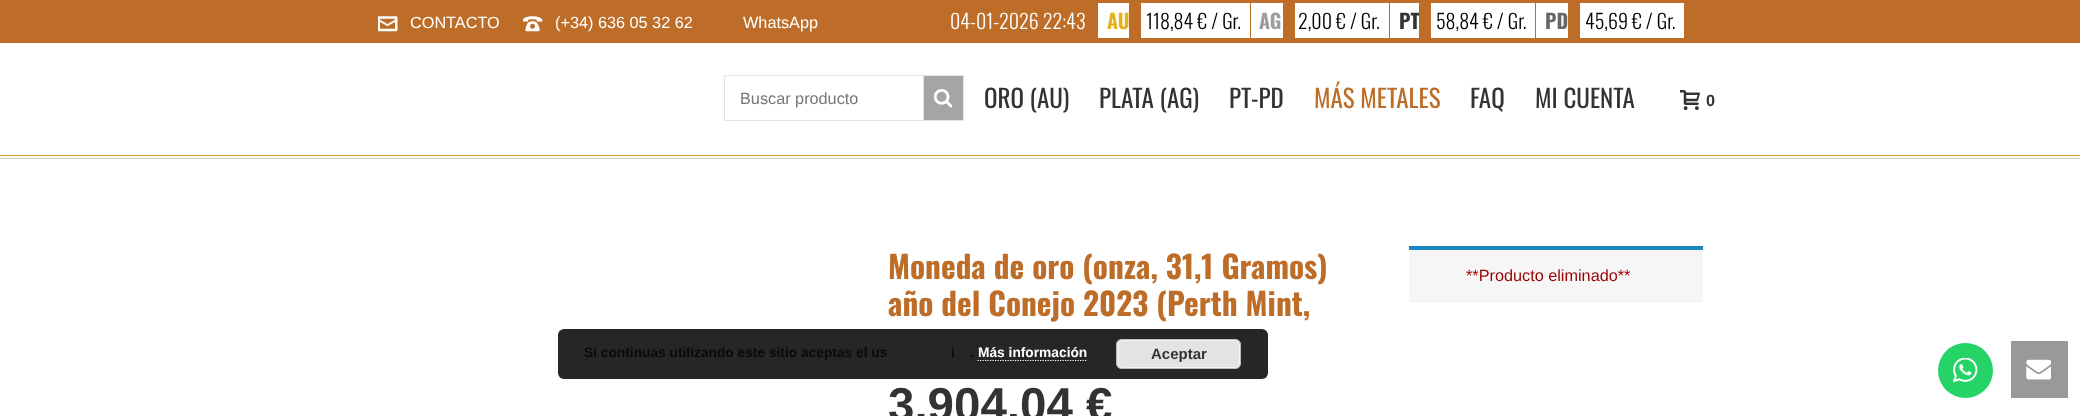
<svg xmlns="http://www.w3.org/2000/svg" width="2080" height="416">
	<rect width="100%" height="100%" fill="#FFFFFF" />
	<rect x="0" y="158" width="2080" height="1" fill="#CCCCCC" />
	<rect x="0" y="0" width="2080" height="43" fill="#BD6D28" />
	<image x="378" y="16" width="20" height="16" href="assets/img1.png" />
	<text x="410" y="28" font-family="Liberation Sans" font-size="16.25" fill="#FFFFFF">CONTACTO</text>
	<image x="523" y="16" width="20" height="16" href="assets/img2.png" />
	<g font-family="Liberation Sans" font-size="16.25" fill="#FFFFFF">
		<text x="555" y="28">(+34) 636 05 32 62</text>
		<text x="743" y="28">WhatsApp</text>
	</g>
	<text x="950" y="29" font-family="Oswald" font-size="20" font-weight="300" fill="#FFFFFF">04-01-2026 22:43</text>
	<rect x="1098" y="3" width="31" height="35" fill="#FFFFFF" />
	<text x="1107" y="29" font-family="Oswald" font-size="20" font-weight="700" fill="#E6B219">AU</text>
	<rect x="1141" y="3" width="109" height="35" fill="#FFFFFF" />
	<text x="1146" y="29" font-family="Oswald" font-size="20" font-weight="300" fill="#000000">118,84 € / Gr.</text>
	<rect x="1251" y="3" width="32" height="35" fill="#FFFFFF" />
	<text x="1259" y="29" font-family="Oswald" font-size="20" font-weight="700" fill="#9D9D9D">AG</text>
	<rect x="1295" y="3" width="94" height="35" fill="#FFFFFF" />
	<text x="1298" y="29" font-family="Oswald" font-size="20" font-weight="300" fill="#000000">2,00 € / Gr.</text>
	<rect x="1390" y="3" width="29" height="35" fill="#FFFFFF" />
	<text x="1399" y="29" font-family="Oswald" font-size="20" font-weight="700" fill="#333333">PT</text>
	<rect x="1431" y="3" width="104" height="35" fill="#FFFFFF" />
	<text x="1436" y="29" font-family="Oswald" font-size="20" font-weight="300" fill="#000000">58,84 € / Gr.</text>
	<rect x="1536" y="3" width="32" height="35" fill="#FFFFFF" />
	<text x="1545" y="29" font-family="Oswald" font-size="20" font-weight="700" fill="#666666">PD</text>
	<rect x="1580" y="3" width="104" height="35" fill="#FFFFFF" />
	<text x="1585" y="29" font-family="Oswald" font-size="20" font-weight="300" fill="#000000">45,69 € / Gr.</text>
	<rect x="0" y="155" width="2080" height="1" fill="#DD9D3B" />
	<rect x="724.5" y="75.5" width="199" height="45" fill="none" stroke="#E3E3E3" />
	<text x="740" y="104" font-family="Liberation Sans" font-size="16.25" fill="#757575">Buscar producto</text>
	<rect x="924" y="76" width="39" height="44" fill="#A5A5A5" />
	<rect x="924" y="75" width="40" height="1" fill="#E3E3E3" />
	<rect x="963" y="75" width="1" height="46" fill="#E3E3E3" />
	<rect x="924" y="120" width="40" height="1" fill="#E3E3E3" />
	<image x="934" y="89" width="19" height="19" href="assets/img3.png" />
	<g font-family="Oswald" font-size="25" fill="#333333">
		<text x="984" y="108">ORO (AU)</text>
		<text x="1099" y="108">PLATA (AG)</text>
		<text x="1229" y="108">PT-PD</text>
	</g>
	<text x="1314" y="108" font-family="Oswald" font-size="25" fill="#BD6D28">MÁS METALES</text>
	<g font-family="Oswald" font-size="25" fill="#333333">
		<text x="1470" y="108">FAQ</text>
		<text x="1535" y="108">MI CUENTA</text>
	</g>
	<image x="1680" y="90" width="20" height="20" href="assets/img4.png" />
	<text x="1706" y="106" font-family="Liberation Sans" font-size="16.25" font-weight="700" fill="#333333">0</text>
	<g font-family="Oswald" font-size="31.25" font-weight="700" fill="#BD6D28">
		<text x="888" y="279">Moneda de oro (onza, 31,1 Gramos)</text>
		<text x="888" y="316">año del Conejo 2023 (Perth Mint,</text>
	</g>
	<text x="888" y="421" font-family="Liberation Sans" font-size="47.5" font-weight="700" fill="#333333">3.904,04 €</text>
	<rect x="1409" y="250" width="294" height="53" fill="#F7F6F7" />
	<rect x="1409" y="246" width="294" height="4" fill="#1E85BE" />
	<text x="1466" y="281" font-family="Liberation Sans" font-size="16.25" fill="#990101">**Producto eliminado**</text>
	<circle cx="1965.5" cy="370.5" r="27.5" fill="#25D366" />
	<image x="1953" y="358" width="25" height="25" href="assets/img5.png" />
	<rect x="2011" y="341" width="57" height="57" fill="#999999" />
	<image x="2026" y="359" width="25" height="21" href="assets/img6.png" />
	<rect x="558" y="329" width="710" height="50" rx="6" fill="#000000" fill-opacity="0.85" />
	<g font-family="Liberation Sans" font-size="13.75" font-weight="700" fill="#0A0A0A">
		<text x="584" y="357">Si continuas utilizando este sitio aceptas el us</text>
		<text x="951" y="357">i</text>
		<text x="970" y="357">.</text>
	</g>
	<text x="978" y="357" font-family="Liberation Sans" font-size="13.75" font-weight="700" fill="#FFFFFF">Más información</text>
	<path d="M977.5 360.5H1087.5" fill="none" stroke="#FFFFFF" stroke-width="1.2" stroke-dasharray="1.25 1.25" />
	<rect x="1116" y="339" width="125" height="30" rx="6" fill="#E3E3E3" />
	<rect x="1118.5" y="340.5" width="121" height="27" rx="4.5" fill="none" stroke="#F6F6F6" />
	<rect x="1116.5" y="339.5" width="124" height="29" rx="5.5" fill="none" stroke="#BBBBBB" />
	<text x="1151" y="359" font-family="Liberation Sans" font-size="15" font-weight="700" fill="#333333">Aceptar</text>
</svg>
